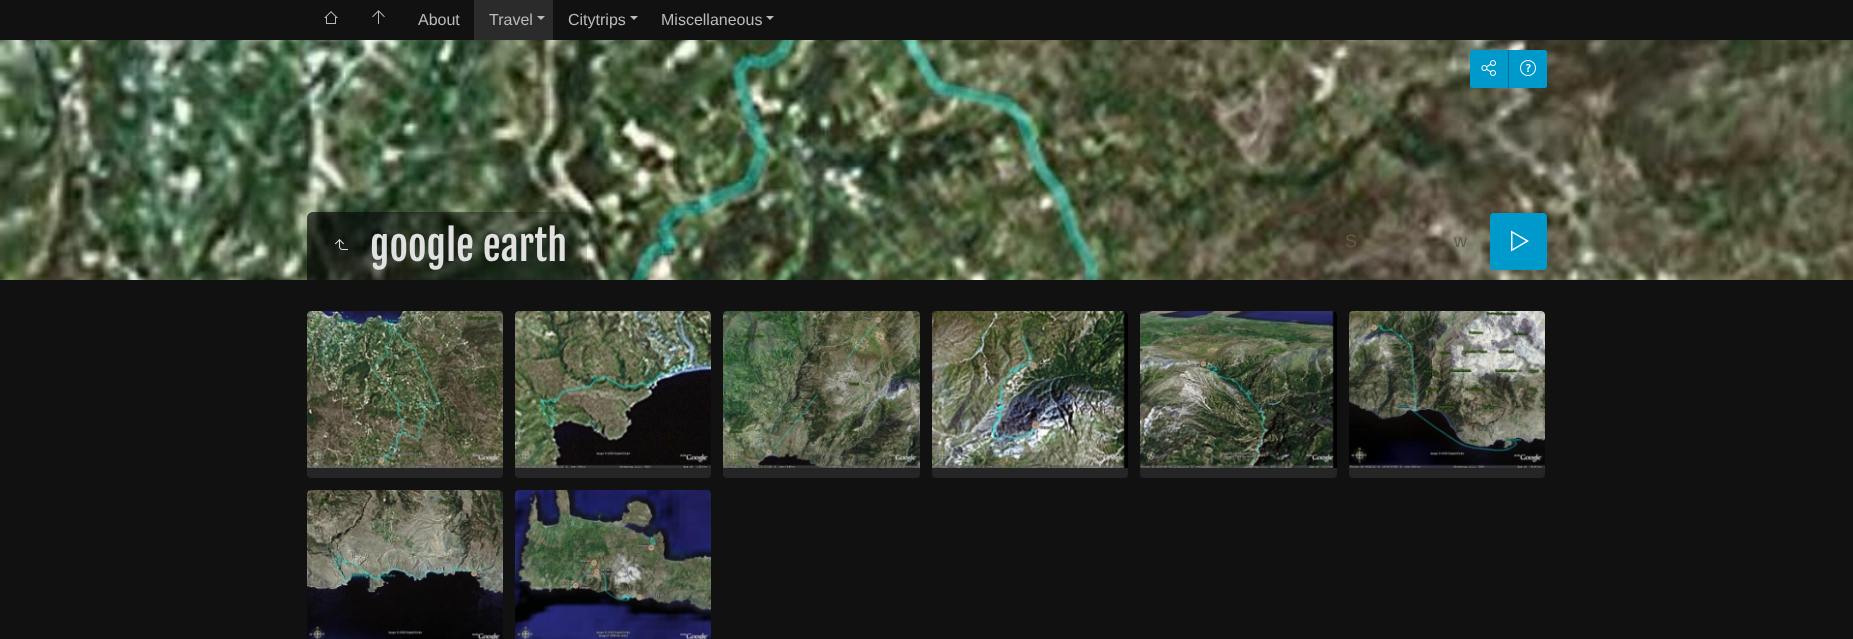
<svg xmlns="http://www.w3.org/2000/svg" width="1853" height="639">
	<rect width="100%" height="100%" fill="#111111" />
	<image x="324" y="11" width="14" height="13" href="assets/img1.png" />
	<image x="372" y="10" width="13" height="14" href="assets/img2.png" />
	<text x="418" y="25" font-family="Liberation Sans" font-size="16" fill="#BBBBBB">About</text>
	<rect x="474" y="0" width="79" height="40" fill="#2B2B2B" />
	<text x="489" y="25" font-family="Liberation Sans" font-size="16" fill="#BBBBBB">Travel</text>
	<path d="M537 16H545L541 20Z" fill="#BBBBBB" />
	<text x="568" y="25" font-family="Liberation Sans" font-size="16" fill="#BBBBBB">Citytrips</text>
	<path d="M630 16H638L634 20Z" fill="#BBBBBB" />
	<text x="661" y="25" font-family="Liberation Sans" font-size="16" fill="#BBBBBB">Miscellaneous</text>
	<path d="M766 16H774L770 20Z" fill="#BBBBBB" />
	<image x="0" y="40" width="1853" height="240" href="assets/img3.png" />
	<image x="335" y="239" width="13" height="11" href="assets/img4.png" />
	<text x="370" y="261" font-family="Fjalla One" font-size="40" fill="#E1E1E1">google earth</text>
	<path d="M1472 50H1508V88H1472C1471 88 1470 87 1470 86V52C1470 51 1471 50 1472 50Z" fill="#0099CC" />
	<image x="1481" y="60" width="15" height="16" href="assets/img5.png" />
	<path d="M1508 50H1545C1546 50 1547 51 1547 52V86C1547 87 1546 88 1545 88H1508Z" fill="#0099CC" />
	<rect x="1508" y="50" width="1" height="38" fill="#006B8F" />
	<image x="1520" y="60" width="16" height="16" href="assets/img6.png" />
	<g font-family="Liberation Sans" font-size="18" fill="#625A49">
		<text x="1345" y="247">S</text>
		<text x="1454" y="247">w</text>
	</g>
	<rect x="1490" y="213" width="57" height="57" rx="4" fill="#0099CC" />
	<path d="M1512.5 233L1526 241L1512.5 249ZM1511 230.5V251.5L1529 241Z" fill="#FFFFFF" />
	<rect x="307" y="311" width="196" height="167" rx="4" fill="#252525" />
	<image x="307" y="311" width="196" height="157" href="assets/img7.png" />
	<rect x="515" y="311" width="196" height="167" rx="4" fill="#252525" />
	<image x="515" y="311" width="196" height="157" href="assets/img8.png" />
	<rect x="723" y="311" width="197" height="167" rx="4" fill="#252525" />
	<image x="723" y="311" width="197" height="157" href="assets/img9.png" />
	<rect x="932" y="311" width="196" height="167" rx="4" fill="#252525" />
	<image x="932" y="311" width="196" height="157" href="assets/img10.png" />
	<rect x="1140" y="311" width="197" height="167" rx="4" fill="#252525" />
	<image x="1140" y="311" width="197" height="157" href="assets/img11.png" />
	<rect x="1349" y="311" width="196" height="167" rx="4" fill="#252525" />
	<image x="1349" y="311" width="196" height="157" href="assets/img12.png" />
	<image x="307" y="490" width="196" height="149" href="assets/img13.png" />
	<image x="515" y="490" width="196" height="149" href="assets/img14.png" />
</svg>
